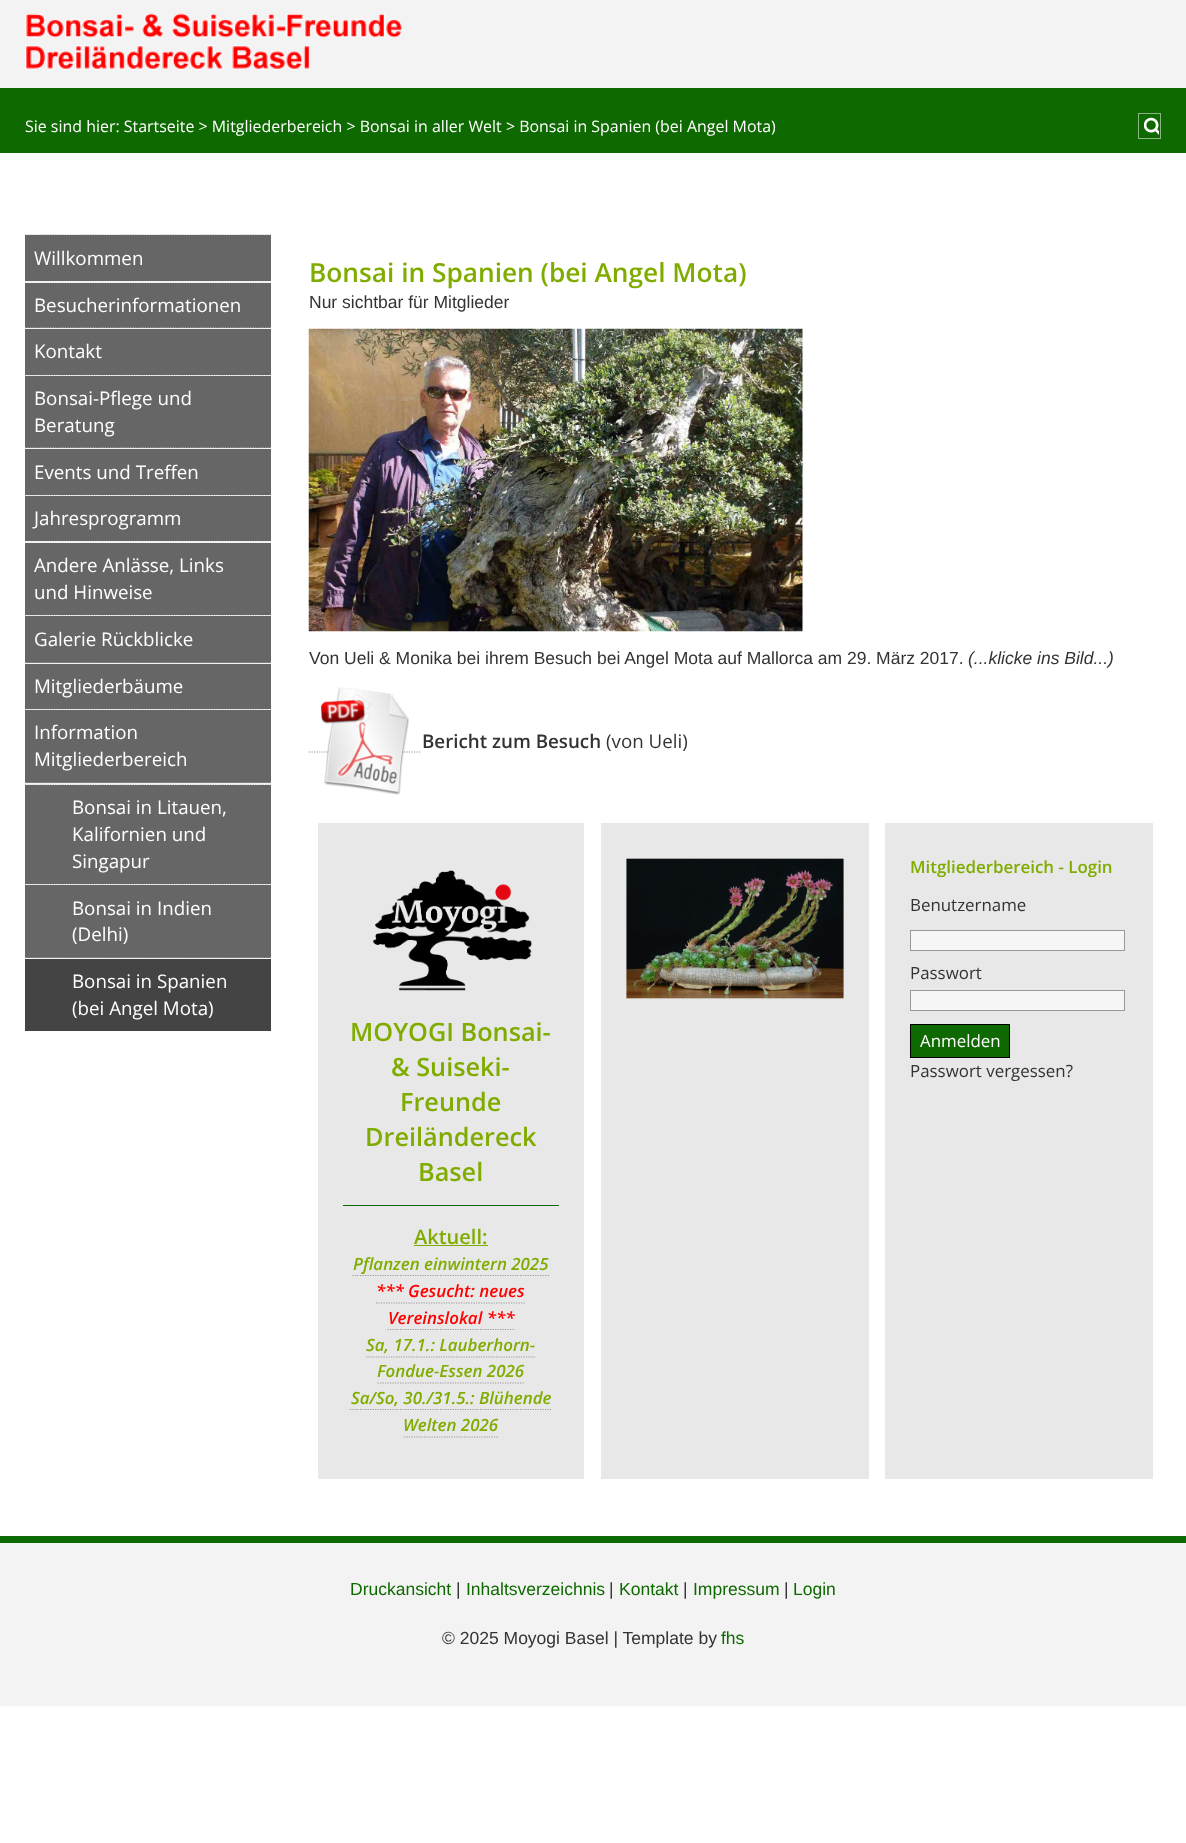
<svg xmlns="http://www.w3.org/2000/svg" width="1186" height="1843">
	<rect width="100%" height="100%" fill="#FFFFFF" />
	<rect x="0" y="0" width="1186" height="88" fill="#F3F3F3" />
	<rect x="0" y="88" width="1186" height="6" fill="#0E6900" />
	<image x="25" y="13" width="378" height="57" href="assets/img1.png" />
	<rect x="0" y="94" width="1186" height="59" fill="#0E6900" />
	<text x="25" y="132" font-family="Open Sans" font-size="15.95" fill="#FFFFFF">Sie sind hier: Startseite &gt; Mitgliederbereich &gt; Bonsai in aller Welt &gt; Bonsai in Spanien (bei Angel Mota)</text>
	<rect x="1138.5" y="113.5" width="22" height="25" fill="none" stroke="#87B480" />
	<image x="1144" y="117" width="15" height="18" href="assets/img2.png" />
	<path d="M25 234.5H271" fill="none" stroke="#CCCCCC" stroke-width="1.2" stroke-dasharray="1.25 1.25" />
	<rect x="25" y="235" width="246" height="46" fill="#666666" />
	<text x="34" y="265" font-family="Open Sans" font-size="18.75" fill="#FFFFFF">Willkommen</text>
	<path d="M25 282H271" fill="none" stroke="#CCCCCC" stroke-width="1.2" stroke-dasharray="1.25 1.25" />
	<rect x="25" y="283" width="246" height="45" fill="#666666" />
	<text x="34" y="312" font-family="Open Sans" font-size="18.75" fill="#FFFFFF">Besucherinformationen</text>
	<path d="M25 328H271" fill="none" stroke="#CCCCCC" stroke-width="1.2" stroke-dasharray="1.25 1.25" />
	<rect x="25" y="329" width="246" height="46" fill="#666666" />
	<text x="34" y="358" font-family="Open Sans" font-size="18.75" fill="#FFFFFF">Kontakt</text>
	<path d="M25 375.5H271" fill="none" stroke="#CCCCCC" stroke-width="1.2" stroke-dasharray="1.25 1.25" />
	<rect x="25" y="376" width="246" height="72" fill="#666666" />
	<g font-family="Open Sans" font-size="18.75" fill="#FFFFFF">
		<text x="34" y="405">Bonsai-Pflege und</text>
		<text x="34" y="432">Beratung</text>
	</g>
	<path d="M25 448H271" fill="none" stroke="#CCCCCC" stroke-width="1.2" stroke-dasharray="1.25 1.25" />
	<rect x="25" y="449" width="246" height="46" fill="#666666" />
	<text x="34" y="479" font-family="Open Sans" font-size="18.75" fill="#FFFFFF">Events und Treffen</text>
	<path d="M25 495.5H271" fill="none" stroke="#CCCCCC" stroke-width="1.2" stroke-dasharray="1.25 1.25" />
	<rect x="25" y="496" width="246" height="45" fill="#666666" />
	<text x="34" y="525" font-family="Open Sans" font-size="18.75" fill="#FFFFFF">Jahresprogramm</text>
	<path d="M25 542H271" fill="none" stroke="#CCCCCC" stroke-width="1.2" stroke-dasharray="1.25 1.25" />
	<rect x="25" y="543" width="246" height="72" fill="#666666" />
	<g font-family="Open Sans" font-size="18.75" fill="#FFFFFF">
		<text x="34" y="572">Andere Anlässe, Links</text>
		<text x="34" y="599">und Hinweise</text>
	</g>
	<path d="M25 615.5H271" fill="none" stroke="#CCCCCC" stroke-width="1.2" stroke-dasharray="1.25 1.25" />
	<rect x="25" y="616" width="246" height="47" fill="#666666" />
	<text x="34" y="646" font-family="Open Sans" font-size="18.75" fill="#FFFFFF">Galerie Rückblicke</text>
	<path d="M25 663H271" fill="none" stroke="#CCCCCC" stroke-width="1.2" stroke-dasharray="1.25 1.25" />
	<rect x="25" y="664" width="246" height="45" fill="#666666" />
	<text x="34" y="693" font-family="Open Sans" font-size="18.75" fill="#FFFFFF">Mitgliederbäume</text>
	<path d="M25 709.5H271" fill="none" stroke="#CCCCCC" stroke-width="1.2" stroke-dasharray="1.25 1.25" />
	<rect x="25" y="710" width="246" height="73" fill="#666666" />
	<g font-family="Open Sans" font-size="18.75" fill="#FFFFFF">
		<text x="34" y="739">Information</text>
		<text x="34" y="766">Mitgliederbereich</text>
	</g>
	<path d="M25 783H271" fill="none" stroke="#CCCCCC" stroke-width="1.2" stroke-dasharray="1.25 1.25" />
	<path d="M25 784.5H271" fill="none" stroke="#CCCCCC" stroke-width="1.2" stroke-dasharray="1.25 1.25" />
	<rect x="25" y="785" width="246" height="99" fill="#666666" />
	<g font-family="Open Sans" font-size="18.75" fill="#FFFFFF">
		<text x="72" y="814">Bonsai in Litauen,</text>
		<text x="72" y="841">Kalifornien und</text>
		<text x="72" y="868">Singapur</text>
	</g>
	<path d="M25 884.5H271" fill="none" stroke="#CCCCCC" stroke-width="1.2" stroke-dasharray="1.25 1.25" />
	<rect x="25" y="885" width="246" height="73" fill="#666666" />
	<g font-family="Open Sans" font-size="18.75" fill="#FFFFFF">
		<text x="72" y="915">Bonsai in Indien</text>
		<text x="72" y="941">(Delhi)</text>
	</g>
	<path d="M25 958H271" fill="none" stroke="#CCCCCC" stroke-width="1.2" stroke-dasharray="1.25 1.25" />
	<rect x="25" y="959" width="246" height="72" fill="#444444" />
	<g font-family="Open Sans" font-size="18.75" fill="#FFFFFF">
		<text x="72" y="988">Bonsai in Spanien</text>
		<text x="72" y="1015">(bei Angel Mota)</text>
	</g>
	<text x="309" y="282" font-family="Open Sans" font-size="26.25" font-weight="600" fill="#80AC00">Bonsai in Spanien (bei Angel Mota)</text>
	<text x="309" y="308" font-family="Liberation Sans" font-size="17.5" fill="#333333">Nur sichtbar für Mitglieder</text>
	<path d="M309 489.5H802.5" fill="none" stroke="#999999" stroke-width="1.2" stroke-dasharray="1.25 1.25" />
	<image x="308" y="328" width="495" height="304" href="assets/img3.png" />
	<text x="309" y="664" font-family="Liberation Sans" font-size="17.5" fill="#333333">Von Ueli &amp; Monika bei ihrem Besuch bei Angel Mota auf Mallorca am 29. März 2017.</text>
	<text x="968" y="664" font-family="Liberation Sans" font-size="17.5" font-style="italic" fill="#333333">(...klicke ins Bild...)</text>
	<path d="M309 752H421" fill="none" stroke="#999999" stroke-width="1.2" stroke-dasharray="1.25 1.25" />
	<image x="320" y="687" width="89" height="108" href="assets/img4.png" />
	<text x="422" y="748" font-family="Open Sans" font-size="18.75" font-weight="600" fill="#333333">Bericht zum Besuch</text>
	<text x="606" y="748" font-family="Open Sans" font-size="18.75" fill="#333333">(von Ueli)</text>
	<rect x="601" y="823" width="268" height="656" fill="#E8E8E8" />
	<image x="626" y="858" width="218" height="141" href="assets/img5.png" />
	<rect x="885" y="823" width="268" height="656" fill="#E8E8E8" />
	<text x="910" y="873" font-family="Open Sans" font-size="16.9" font-weight="600" fill="#80AC00">Mitgliederbereich - Login</text>
	<text x="910" y="911" font-family="Open Sans" font-size="16.9" fill="#333333">Benutzername</text>
	<rect x="910.5" y="930.5" width="214" height="20" fill="#F6F6F6" stroke="#999999" />
	<text x="910" y="979" font-family="Open Sans" font-size="16.9" fill="#333333">Passwort</text>
	<rect x="910.5" y="990.5" width="214" height="20" fill="#F6F6F6" stroke="#999999" />
	<rect x="910.5" y="1024.5" width="99" height="33" fill="#0E6900" stroke="#000000" />
	<text x="920" y="1047" font-family="Open Sans" font-size="16.9" fill="#FFFFFF">Anmelden</text>
	<text x="910" y="1077" font-family="Open Sans" font-size="16.9" fill="#333333">Passwort vergessen?</text>
	<rect x="318" y="823" width="266" height="656" fill="#E8E8E8" />
	<image x="372" y="870" width="160" height="121" href="assets/img6.png" />
	<g font-family="Open Sans" font-size="25.25" font-weight="600" fill="#80AC00">
		<text x="350" y="1041">MOYOGI Bonsai-</text>
		<text x="391" y="1076">&amp; Suiseki-</text>
		<text x="400" y="1111">Freunde</text>
		<text x="365" y="1146">Dreiländereck</text>
		<text x="418" y="1181">Basel</text>
	</g>
	<rect x="343" y="1205" width="216" height="1" fill="#0E6900" />
	<text x="414" y="1244" font-family="Open Sans" font-size="20" font-weight="600" fill="#80AC00">Aktuell:</text>
	<rect x="414" y="1245" width="74" height="1" fill="#80AC00" />
	<path d="M352.5 1275.5H549" fill="none" stroke="#999999" stroke-width="1.2" stroke-dasharray="1.25 1.25" />
	<text x="353" y="1270" font-family="Open Sans" font-size="16.9" font-weight="600" font-style="italic" fill="#80AC00">Pflanzen einwintern 2025</text>
	<text x="376" y="1297" font-family="Open Sans" font-size="16.9" font-weight="600" font-style="italic" fill="#FF0000">*** Gesucht: neues</text>
	<path d="M376 1303H525" fill="none" stroke="#999999" stroke-width="1.2" stroke-dasharray="1.25 1.25" />
	<text x="388" y="1324" font-family="Open Sans" font-size="16.9" font-weight="600" font-style="italic" fill="#FF0000">Vereinslokal ***</text>
	<path d="M387.5 1329.5H514" fill="none" stroke="#999999" stroke-width="1.2" stroke-dasharray="1.25 1.25" />
	<text x="366" y="1351" font-family="Open Sans" font-size="16.9" font-weight="600" font-style="italic" fill="#80AC00">Sa, 17.1.: Lauberhorn-</text>
	<path d="M366 1357H535" fill="none" stroke="#999999" stroke-width="1.2" stroke-dasharray="1.25 1.25" />
	<text x="377" y="1377" font-family="Open Sans" font-size="16.9" font-weight="600" font-style="italic" fill="#80AC00">Fondue-Essen 2026</text>
	<path d="M377.5 1383H524" fill="none" stroke="#999999" stroke-width="1.2" stroke-dasharray="1.25 1.25" />
	<text x="351" y="1404" font-family="Open Sans" font-size="16.9" font-weight="600" font-style="italic" fill="#80AC00">Sa/So, 30./31.5.: Blühende</text>
	<path d="M350 1409.5H551" fill="none" stroke="#999999" stroke-width="1.2" stroke-dasharray="1.25 1.25" />
	<text x="403" y="1431" font-family="Open Sans" font-size="16.9" font-weight="600" font-style="italic" fill="#80AC00">Welten 2026</text>
	<path d="M404 1437H499" fill="none" stroke="#999999" stroke-width="1.2" stroke-dasharray="1.25 1.25" />
	<rect x="0" y="1543" width="1186" height="163" fill="#F3F3F3" />
	<rect x="0" y="1536" width="1186" height="7" fill="#0E6900" />
	<text x="350" y="1595" font-family="Liberation Sans" font-size="17.5" fill="#0E6900">Druckansicht</text>
	<text x="456" y="1595" font-family="Liberation Sans" font-size="17.5" fill="#333333">|</text>
	<text x="466" y="1595" font-family="Liberation Sans" font-size="17.5" fill="#0E6900">Inhaltsverzeichnis</text>
	<text x="609" y="1595" font-family="Liberation Sans" font-size="17.5" fill="#333333">|</text>
	<text x="619" y="1595" font-family="Liberation Sans" font-size="17.5" fill="#0E6900">Kontakt</text>
	<text x="683" y="1595" font-family="Liberation Sans" font-size="17.5" fill="#333333">|</text>
	<text x="693" y="1595" font-family="Liberation Sans" font-size="17.5" fill="#0E6900">Impressum</text>
	<text x="784" y="1595" font-family="Liberation Sans" font-size="17.5" fill="#333333">|</text>
	<text x="793" y="1595" font-family="Liberation Sans" font-size="17.5" fill="#0E6900">Login</text>
	<text x="442" y="1644" font-family="Liberation Sans" font-size="17.5" fill="#333333">© 2025 Moyogi Basel | Template by</text>
	<text x="721" y="1644" font-family="Liberation Sans" font-size="17.5" fill="#0E6900">fhs</text>
</svg>
